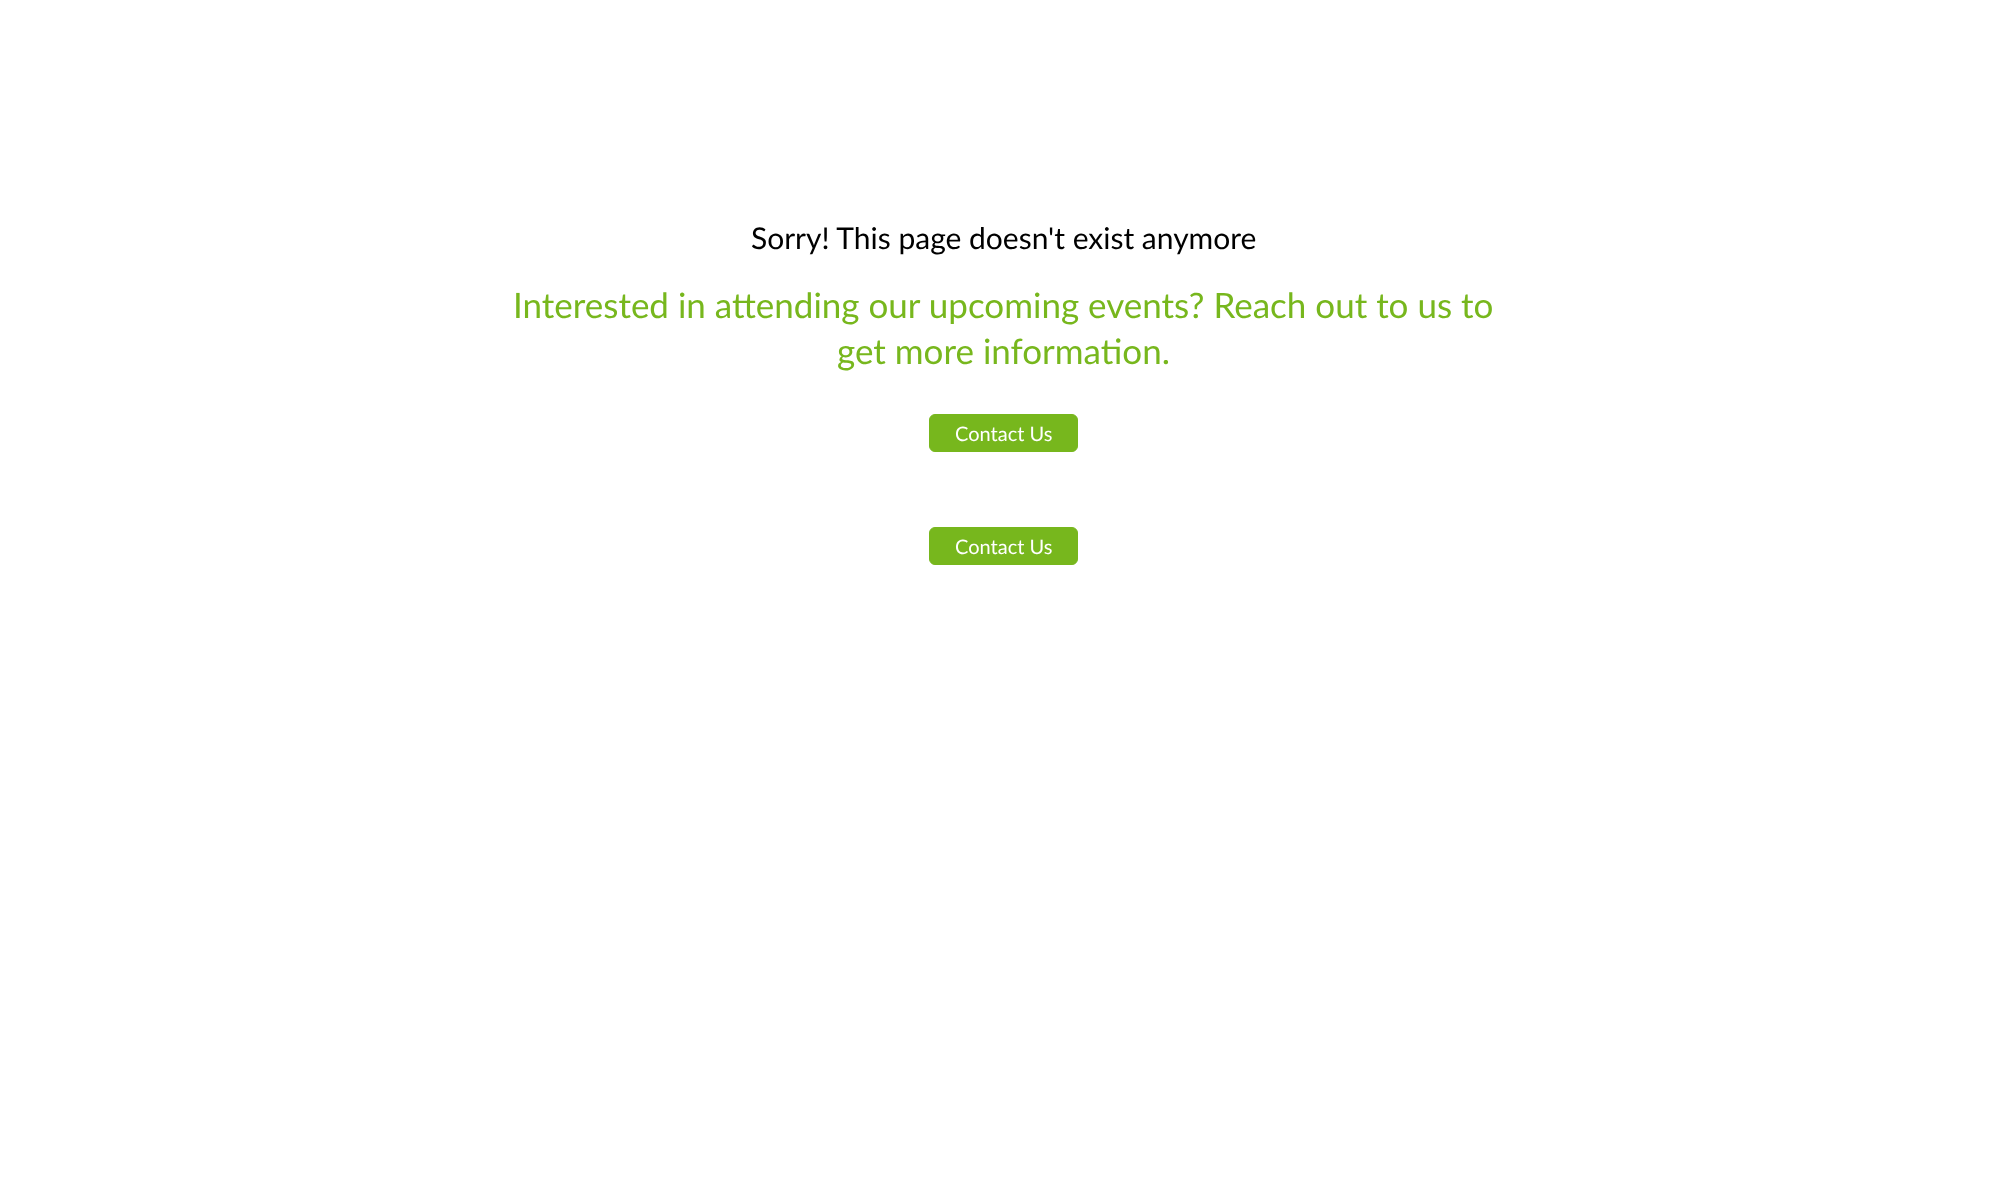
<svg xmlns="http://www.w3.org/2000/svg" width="2007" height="1190">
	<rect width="100%" height="100%" fill="#FFFFFF" />
	<text x="751" y="249" font-family="Lato" font-size="30" fill="#000000">Sorry! This page doesn't exist anymore</text>
	<g font-family="Lato" font-size="35" fill="#77B71D">
		<text x="513" y="318">Interested in attending our upcoming events? Reach out to us to</text>
		<text x="837" y="364">get more information.</text>
	</g>
	<rect x="929.5" y="414.5" width="148" height="37" rx="5.5" fill="#77B71D" stroke="#77B71D" />
	<text x="955" y="441" font-family="Lato" font-size="20" fill="#FFFFFF">Contact Us</text>
	<rect x="929.5" y="527.5" width="148" height="37" rx="5.5" fill="#77B71D" stroke="#77B71D" />
	<text x="955" y="554" font-family="Lato" font-size="20" fill="#FFFFFF">Contact Us</text>
</svg>
